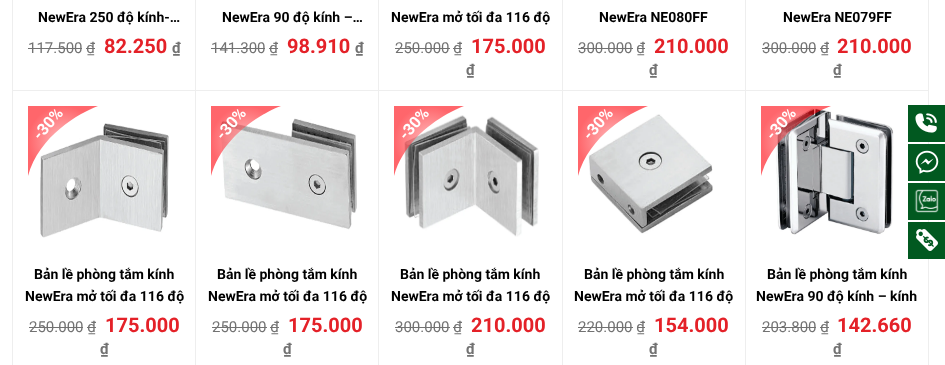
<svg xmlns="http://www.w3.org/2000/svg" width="945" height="365">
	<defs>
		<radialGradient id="g1" gradientUnits="userSpaceOnUse" cx="63" cy="141" r="35"><stop offset="0" stop-color="#FFBBBD" /><stop offset="1" stop-color="#FF666B" /></radialGradient>
		<radialGradient id="g2" gradientUnits="userSpaceOnUse" cx="246" cy="141" r="35"><stop offset="0" stop-color="#FF8D91" stop-opacity="0.6" /><stop offset="1" stop-color="#FF0009" stop-opacity="0.6" /></radialGradient>
		<radialGradient id="g3" gradientUnits="userSpaceOnUse" cx="429" cy="141" r="35"><stop offset="0" stop-color="#FF8D91" stop-opacity="0.6" /><stop offset="1" stop-color="#FF0009" stop-opacity="0.6" /></radialGradient>
		<radialGradient id="g4" gradientUnits="userSpaceOnUse" cx="613" cy="141" r="35"><stop offset="0" stop-color="#FFBBBD" /><stop offset="1" stop-color="#FF666B" /></radialGradient>
		<radialGradient id="g5" gradientUnits="userSpaceOnUse" cx="796" cy="141" r="35"><stop offset="0" stop-color="#FF8D91" stop-opacity="0.6" /><stop offset="1" stop-color="#FF0009" stop-opacity="0.6" /></radialGradient>
	</defs>
	<rect width="100%" height="100%" fill="#FFFFFF" />
	<rect x="12.5" y="-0.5" width="183" height="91" fill="none" stroke="#EEEEEE" />
	<text x="38" y="22" font-family="Roboto" font-size="14" font-weight="700" fill="#000000">NewEra 250 độ kính-…</text>
	<text x="28" y="53" font-family="Roboto" font-size="15" fill="#727272">117.500 ₫</text>
	<rect x="28" y="48" width="54" height="1" fill="#727272" />
	<rect x="86" y="48" width="9" height="1" fill="#727272" />
	<text x="104" y="53" font-family="Roboto" font-size="20" font-weight="700" fill="#E42128">82.250</text>
	<text x="172" y="53" font-family="Roboto" font-size="15" font-weight="700" fill="#727272">₫</text>
	<rect x="195.5" y="-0.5" width="183" height="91" fill="none" stroke="#EEEEEE" />
	<text x="222" y="22" font-family="Roboto" font-size="14" font-weight="700" fill="#000000">NewEra 90 độ kính –…</text>
	<text x="211" y="53" font-family="Roboto" font-size="15" fill="#727272">141.300 ₫</text>
	<rect x="211" y="48" width="54" height="1" fill="#727272" />
	<rect x="269" y="48" width="9" height="1" fill="#727272" />
	<text x="287" y="53" font-family="Roboto" font-size="20" font-weight="700" fill="#E42128">98.910</text>
	<text x="355" y="53" font-family="Roboto" font-size="15" font-weight="700" fill="#727272">₫</text>
	<rect x="378.5" y="-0.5" width="184" height="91" fill="none" stroke="#EEEEEE" />
	<text x="391" y="22" font-family="Roboto" font-size="14" font-weight="700" fill="#000000">NewEra mở tối đa 116 độ</text>
	<text x="395" y="53" font-family="Roboto" font-size="15" fill="#727272">250.000 ₫</text>
	<rect x="395" y="48" width="55" height="1" fill="#727272" />
	<rect x="453" y="48" width="9" height="1" fill="#727272" />
	<text x="471" y="53" font-family="Roboto" font-size="20" font-weight="700" fill="#E42128">175.000</text>
	<text x="466" y="75" font-family="Roboto" font-size="15" font-weight="700" fill="#727272">₫</text>
	<rect x="562.5" y="-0.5" width="183" height="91" fill="none" stroke="#EEEEEE" />
	<text x="599" y="22" font-family="Roboto" font-size="14" font-weight="700" fill="#000000">NewEra NE080FF</text>
	<text x="578" y="53" font-family="Roboto" font-size="15" fill="#727272">300.000 ₫</text>
	<rect x="578" y="48" width="55" height="1" fill="#727272" />
	<rect x="637" y="48" width="8" height="1" fill="#727272" />
	<text x="654" y="53" font-family="Roboto" font-size="20" font-weight="700" fill="#E42128">210.000</text>
	<text x="649" y="75" font-family="Roboto" font-size="15" font-weight="700" fill="#727272">₫</text>
	<rect x="745.5" y="-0.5" width="183" height="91" fill="none" stroke="#EEEEEE" />
	<text x="783" y="22" font-family="Roboto" font-size="14" font-weight="700" fill="#000000">NewEra NE079FF</text>
	<text x="762" y="53" font-family="Roboto" font-size="15" fill="#727272">300.000 ₫</text>
	<rect x="762" y="48" width="54" height="1" fill="#727272" />
	<rect x="820" y="48" width="9" height="1" fill="#727272" />
	<text x="837" y="53" font-family="Roboto" font-size="20" font-weight="700" fill="#E42128">210.000</text>
	<text x="833" y="75" font-family="Roboto" font-size="15" font-weight="700" fill="#727272">₫</text>
	<rect x="12.5" y="90.5" width="183" height="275" fill="none" stroke="#EEEEEE" />
	<image x="40" y="123" width="129" height="115" href="assets/img1.png" />
	<path d="M28 106V176C39 136 79 113 98 106Z" fill="url(#g1)" />
	<text x="40" y="141" transform="rotate(-49 40 141)" font-family="Roboto" font-size="16" font-weight="700" fill="#FFFFFF">-30%</text>
	<g font-family="Roboto" font-size="14" font-weight="700" fill="#000000">
		<text x="34" y="279">Bản lề phòng tắm kính</text>
		<text x="25" y="301">NewEra mở tối đa 116 độ</text>
	</g>
	<text x="29" y="332" font-family="Roboto" font-size="15" fill="#727272">250.000 ₫</text>
	<rect x="29" y="327" width="54" height="1" fill="#727272" />
	<rect x="87" y="327" width="9" height="1" fill="#727272" />
	<text x="105" y="332" font-family="Roboto" font-size="20" font-weight="700" fill="#E42128">175.000</text>
	<text x="100" y="354" font-family="Roboto" font-size="15" font-weight="700" fill="#727272">₫</text>
	<rect x="195.5" y="90.5" width="183" height="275" fill="none" stroke="#EEEEEE" />
	<image x="220" y="118" width="137" height="112" href="assets/img2.png" />
	<path d="M211 106V176C222 136 262 113 281 106Z" fill="url(#g2)" />
	<text x="223" y="141" transform="rotate(-49 223 141)" font-family="Roboto" font-size="16" font-weight="700" fill="#FFFFFF">-30%</text>
	<g font-family="Roboto" font-size="14" font-weight="700" fill="#000000">
		<text x="217" y="279">Bản lề phòng tắm kính</text>
		<text x="208" y="301">NewEra mở tối đa 116 độ</text>
	</g>
	<text x="212" y="332" font-family="Roboto" font-size="15" fill="#727272">250.000 ₫</text>
	<rect x="212" y="327" width="55" height="1" fill="#727272" />
	<rect x="270" y="327" width="9" height="1" fill="#727272" />
	<text x="288" y="332" font-family="Roboto" font-size="20" font-weight="700" fill="#E42128">175.000</text>
	<text x="283" y="354" font-family="Roboto" font-size="15" font-weight="700" fill="#727272">₫</text>
	<rect x="378.5" y="90.5" width="184" height="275" fill="none" stroke="#EEEEEE" />
	<image x="404" y="115" width="135" height="122" href="assets/img3.png" />
	<path d="M394 106V176C405 136 445 113 464 106Z" fill="url(#g3)" />
	<text x="406" y="141" transform="rotate(-49 406 141)" font-family="Roboto" font-size="16" font-weight="700" fill="#FFFFFF">-30%</text>
	<g font-family="Roboto" font-size="14" font-weight="700" fill="#000000">
		<text x="400" y="279">Bản lề phòng tắm kính</text>
		<text x="391" y="301">NewEra mở tối đa 116 độ</text>
	</g>
	<text x="395" y="332" font-family="Roboto" font-size="15" fill="#727272">300.000 ₫</text>
	<rect x="395" y="327" width="55" height="1" fill="#727272" />
	<rect x="453" y="327" width="9" height="1" fill="#727272" />
	<text x="471" y="332" font-family="Roboto" font-size="20" font-weight="700" fill="#E42128">210.000</text>
	<text x="466" y="354" font-family="Roboto" font-size="15" font-weight="700" fill="#727272">₫</text>
	<rect x="562.5" y="90.5" width="183" height="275" fill="none" stroke="#EEEEEE" />
	<image x="588" y="114" width="125" height="120" href="assets/img4.png" />
	<path d="M578 106V176C589 136 629 113 648 106Z" fill="url(#g4)" />
	<text x="590" y="141" transform="rotate(-49 590 141)" font-family="Roboto" font-size="16" font-weight="700" fill="#FFFFFF">-30%</text>
	<g font-family="Roboto" font-size="14" font-weight="700" fill="#000000">
		<text x="584" y="279">Bản lề phòng tắm kính</text>
		<text x="574" y="301">NewEra mở tối đa 116 độ</text>
	</g>
	<text x="578" y="332" font-family="Roboto" font-size="15" fill="#727272">220.000 ₫</text>
	<rect x="578" y="327" width="55" height="1" fill="#727272" />
	<rect x="637" y="327" width="8" height="1" fill="#727272" />
	<text x="654" y="332" font-family="Roboto" font-size="20" font-weight="700" fill="#E42128">154.000</text>
	<text x="649" y="354" font-family="Roboto" font-size="15" font-weight="700" fill="#727272">₫</text>
	<rect x="745.5" y="90.5" width="183" height="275" fill="none" stroke="#EEEEEE" />
	<image x="775" y="108" width="119" height="127" href="assets/img5.png" />
	<path d="M761 106V176C772 136 812 113 831 106Z" fill="url(#g5)" />
	<text x="773" y="141" transform="rotate(-49 773 141)" font-family="Roboto" font-size="16" font-weight="700" fill="#FFFFFF">-30%</text>
	<g font-family="Roboto" font-size="14" font-weight="700" fill="#000000">
		<text x="767" y="279">Bản lề phòng tắm kính</text>
		<text x="756" y="301">NewEra 90 độ kính – kính</text>
	</g>
	<text x="762" y="332" font-family="Roboto" font-size="15" fill="#727272">203.800 ₫</text>
	<rect x="762" y="327" width="54" height="1" fill="#727272" />
	<rect x="820" y="327" width="9" height="1" fill="#727272" />
	<text x="837" y="332" font-family="Roboto" font-size="20" font-weight="700" fill="#E42128">142.660</text>
	<text x="833" y="354" font-family="Roboto" font-size="15" font-weight="700" fill="#727272">₫</text>
	<rect x="908" y="105" width="37" height="37" fill="#015920" />
	<image x="915" y="113" width="22" height="20" href="assets/img6.png" />
	<rect x="908" y="144" width="37" height="37" fill="#015920" />
	<image x="915" y="150" width="24" height="24" href="assets/img7.png" />
	<rect x="908" y="183" width="37" height="37" fill="#015920" />
	<image x="914" y="189" width="25" height="24" href="assets/img8.png" />
	<rect x="908" y="222" width="37" height="37" fill="#015920" />
	<image x="916" y="229" width="22" height="22" href="assets/img9.png" />
</svg>
